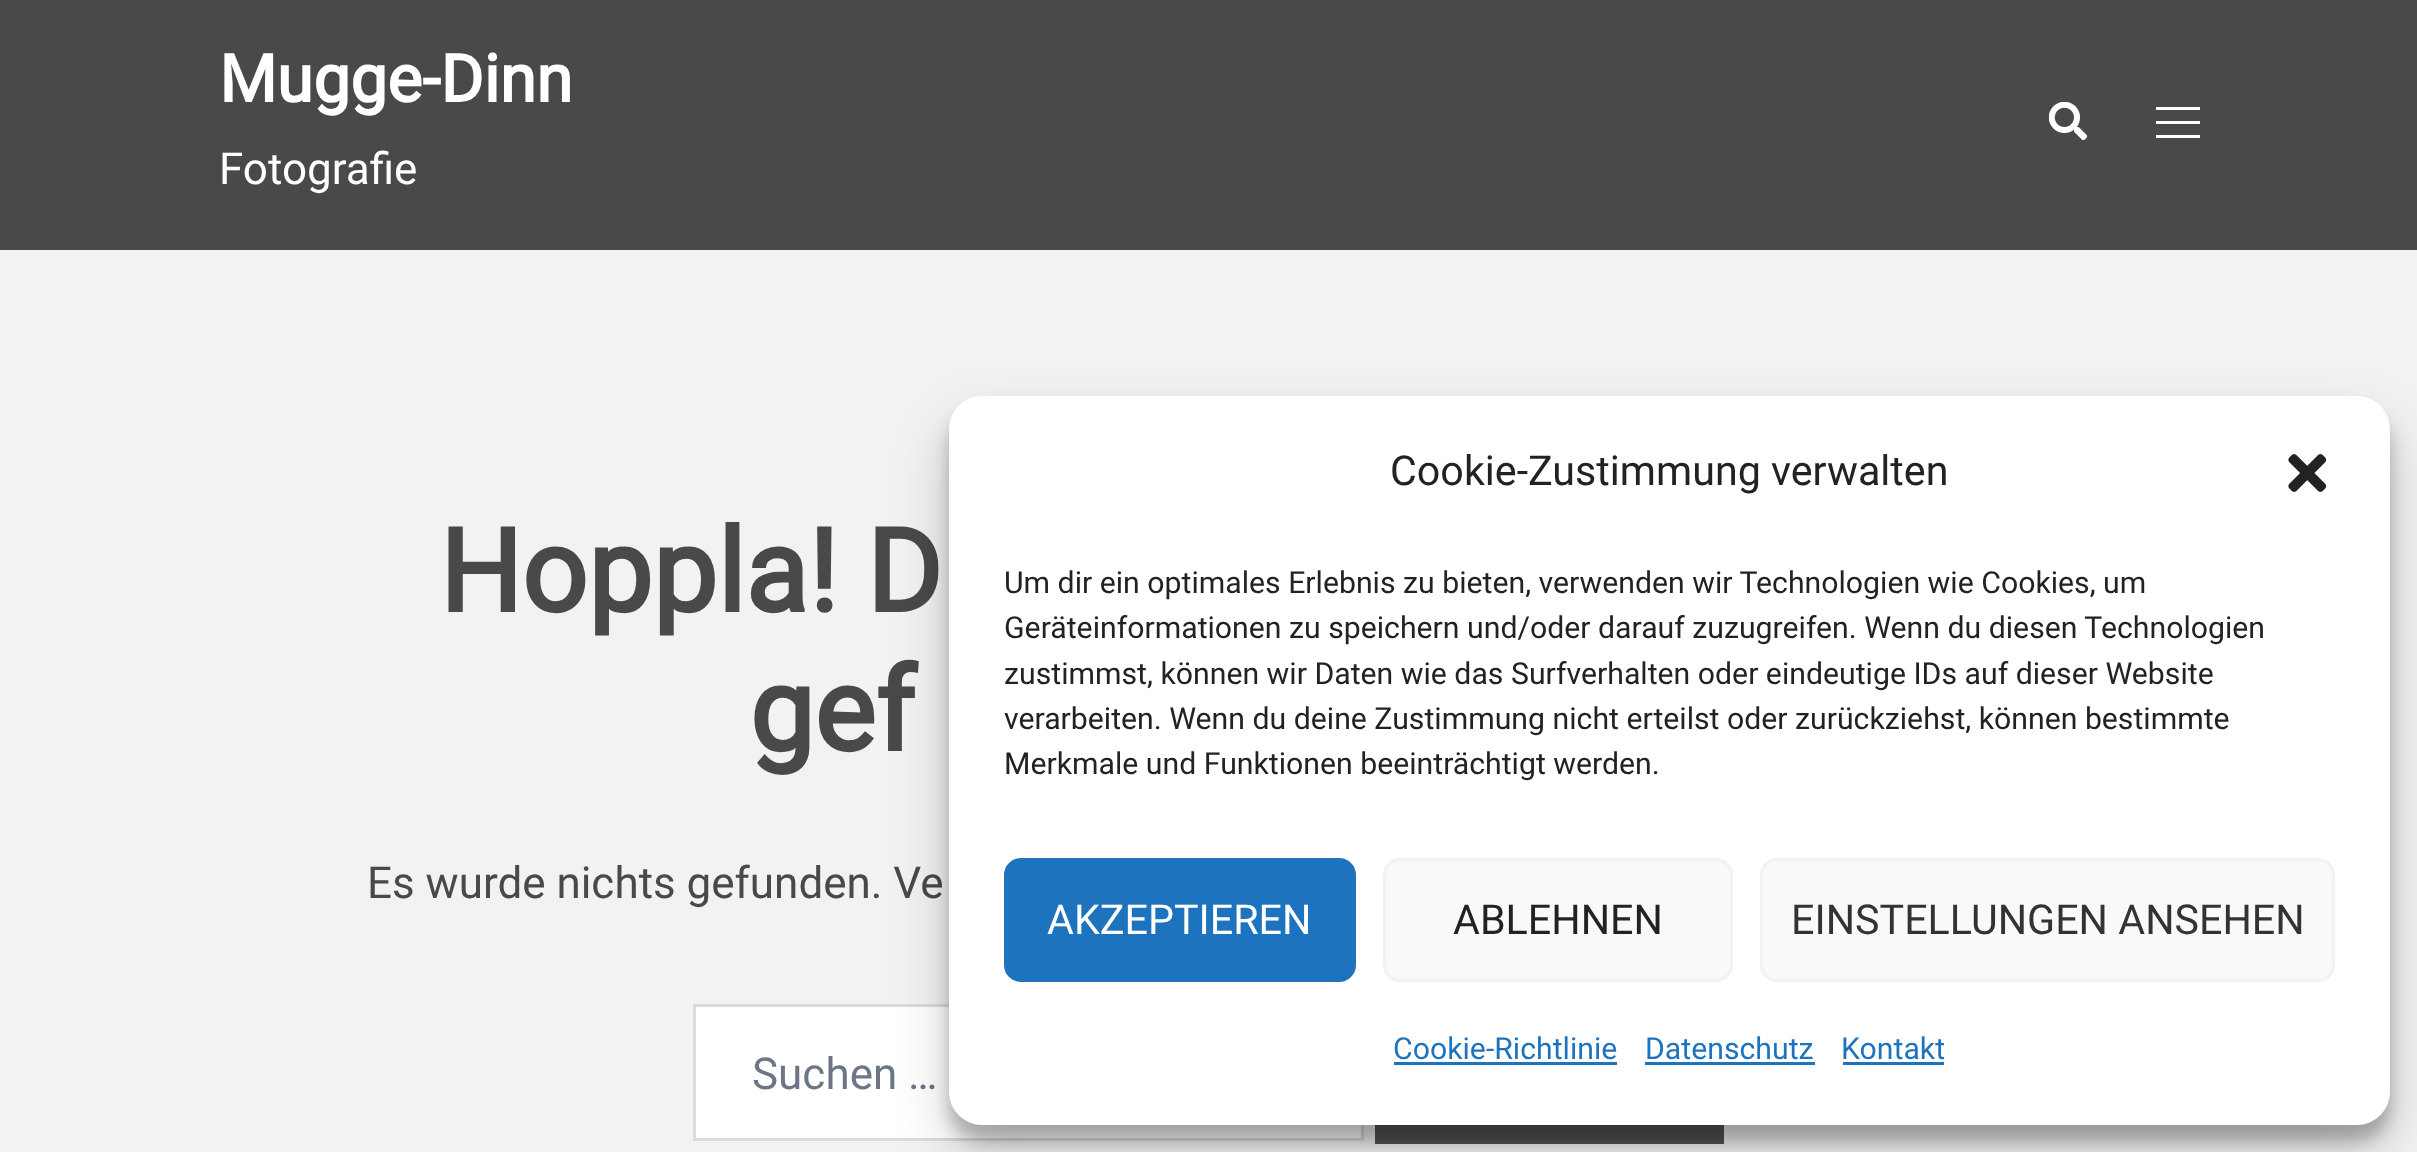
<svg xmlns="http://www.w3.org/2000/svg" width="2417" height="1152">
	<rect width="100%" height="100%" fill="#F2F2F2" />
	<rect x="0" y="0" width="2417" height="250" fill="#494949" />
	<text x="219" y="102" font-family="Roboto" font-size="66" font-weight="700" fill="#FFFFFF">Mugge-Dinn</text>
	<text x="219" y="184" font-family="Roboto" font-size="44" fill="#FFFFFF">Fotografie</text>
	<image x="2049" y="102" width="38" height="38" href="assets/img1.png" />
	<rect x="2156" y="107" width="44" height="3" fill="#FFFFFF" />
	<rect x="2156" y="121" width="44" height="3" fill="#FFFFFF" />
	<rect x="2156" y="135" width="44" height="3" fill="#FFFFFF" />
	<g font-family="Roboto" font-size="115.5" font-weight="700" fill="#494949">
		<text x="439" y="612">Hoppla! D</text>
		<text x="749" y="751">gef</text>
	</g>
	<text x="367" y="898" font-family="Roboto" font-size="44" fill="#494949">Es wurde nichts gefunden. Ve</text>
	<rect x="694.5" y="1005.5" width="668" height="134" fill="#FFFFFF" stroke="#DBDBDB" stroke-width="3" />
	<text x="752" y="1089" font-family="Roboto" font-size="44" fill="#6D7685">Suchen …</text>
	<rect x="1375" y="1125" width="349" height="19" fill="#545454" />
	<rect x="949" y="413" width="1441" height="728" rx="33" fill="#000000" fill-opacity="0.23" filter="blur(8px)" />
	<rect x="949" y="424" width="1441" height="728" rx="33" fill="#000000" fill-opacity="0.19" filter="blur(27.5px)" />
	<rect x="949" y="396" width="1441" height="729" rx="33" fill="#FFFFFF" />
	<text x="1390" y="485" font-family="Roboto" font-size="41.25" fill="#222222">Cookie-Zustimmung verwalten</text>
	<image x="2288" y="454" width="39" height="38" href="assets/img2.png" />
	<g font-family="Roboto" font-size="30.25" fill="#222222">
		<text x="1004" y="593">Um dir ein optimales Erlebnis zu bieten, verwenden wir Technologien wie Cookies, um</text>
		<text x="1004" y="638">Geräteinformationen zu speichern und/oder darauf zuzugreifen. Wenn du diesen Technologien</text>
		<text x="1004" y="684">zustimmst, können wir Daten wie das Surfverhalten oder eindeutige IDs auf dieser Website</text>
		<text x="1004" y="729">verarbeiten. Wenn du deine Zustimmung nicht erteilst oder zurückziehst, können bestimmte</text>
		<text x="1004" y="774">Merkmale und Funktionen beeinträchtigt werden.</text>
	</g>
	<rect x="1005.5" y="859.5" width="349" height="121" rx="15.5" fill="#1E73BE" stroke="#1E73BE" stroke-width="3" />
	<text x="1047" y="934" font-family="Roboto" font-size="41.25" fill="#FFFFFF">AKZEPTIEREN</text>
	<rect x="1384.5" y="859.5" width="347" height="121" rx="15.5" fill="#F9F9F9" stroke="#F2F2F2" stroke-width="3" />
	<text x="1453" y="934" font-family="Roboto" font-size="41.25" fill="#222222">ABLEHNEN</text>
	<rect x="1761.5" y="859.5" width="572" height="121" rx="15.5" fill="#F9F9F9" stroke="#F2F2F2" stroke-width="3" />
	<text x="1791" y="934" font-family="Roboto" font-size="41.25" fill="#333333">EINSTELLUNGEN ANSEHEN</text>
	<text x="1393" y="1059" font-family="Roboto" font-size="30.25" fill="#1E73BE">Cookie-Richtlinie</text>
	<rect x="1394" y="1062" width="223" height="3" fill="#1E73BE" />
	<text x="1645" y="1059" font-family="Roboto" font-size="30.25" fill="#1E73BE">Datenschutz</text>
	<rect x="1645" y="1062" width="170" height="3" fill="#1E73BE" />
	<text x="1841" y="1059" font-family="Roboto" font-size="30.25" fill="#1E73BE">Kontakt</text>
	<rect x="1843" y="1062" width="101" height="3" fill="#1E73BE" />
</svg>
